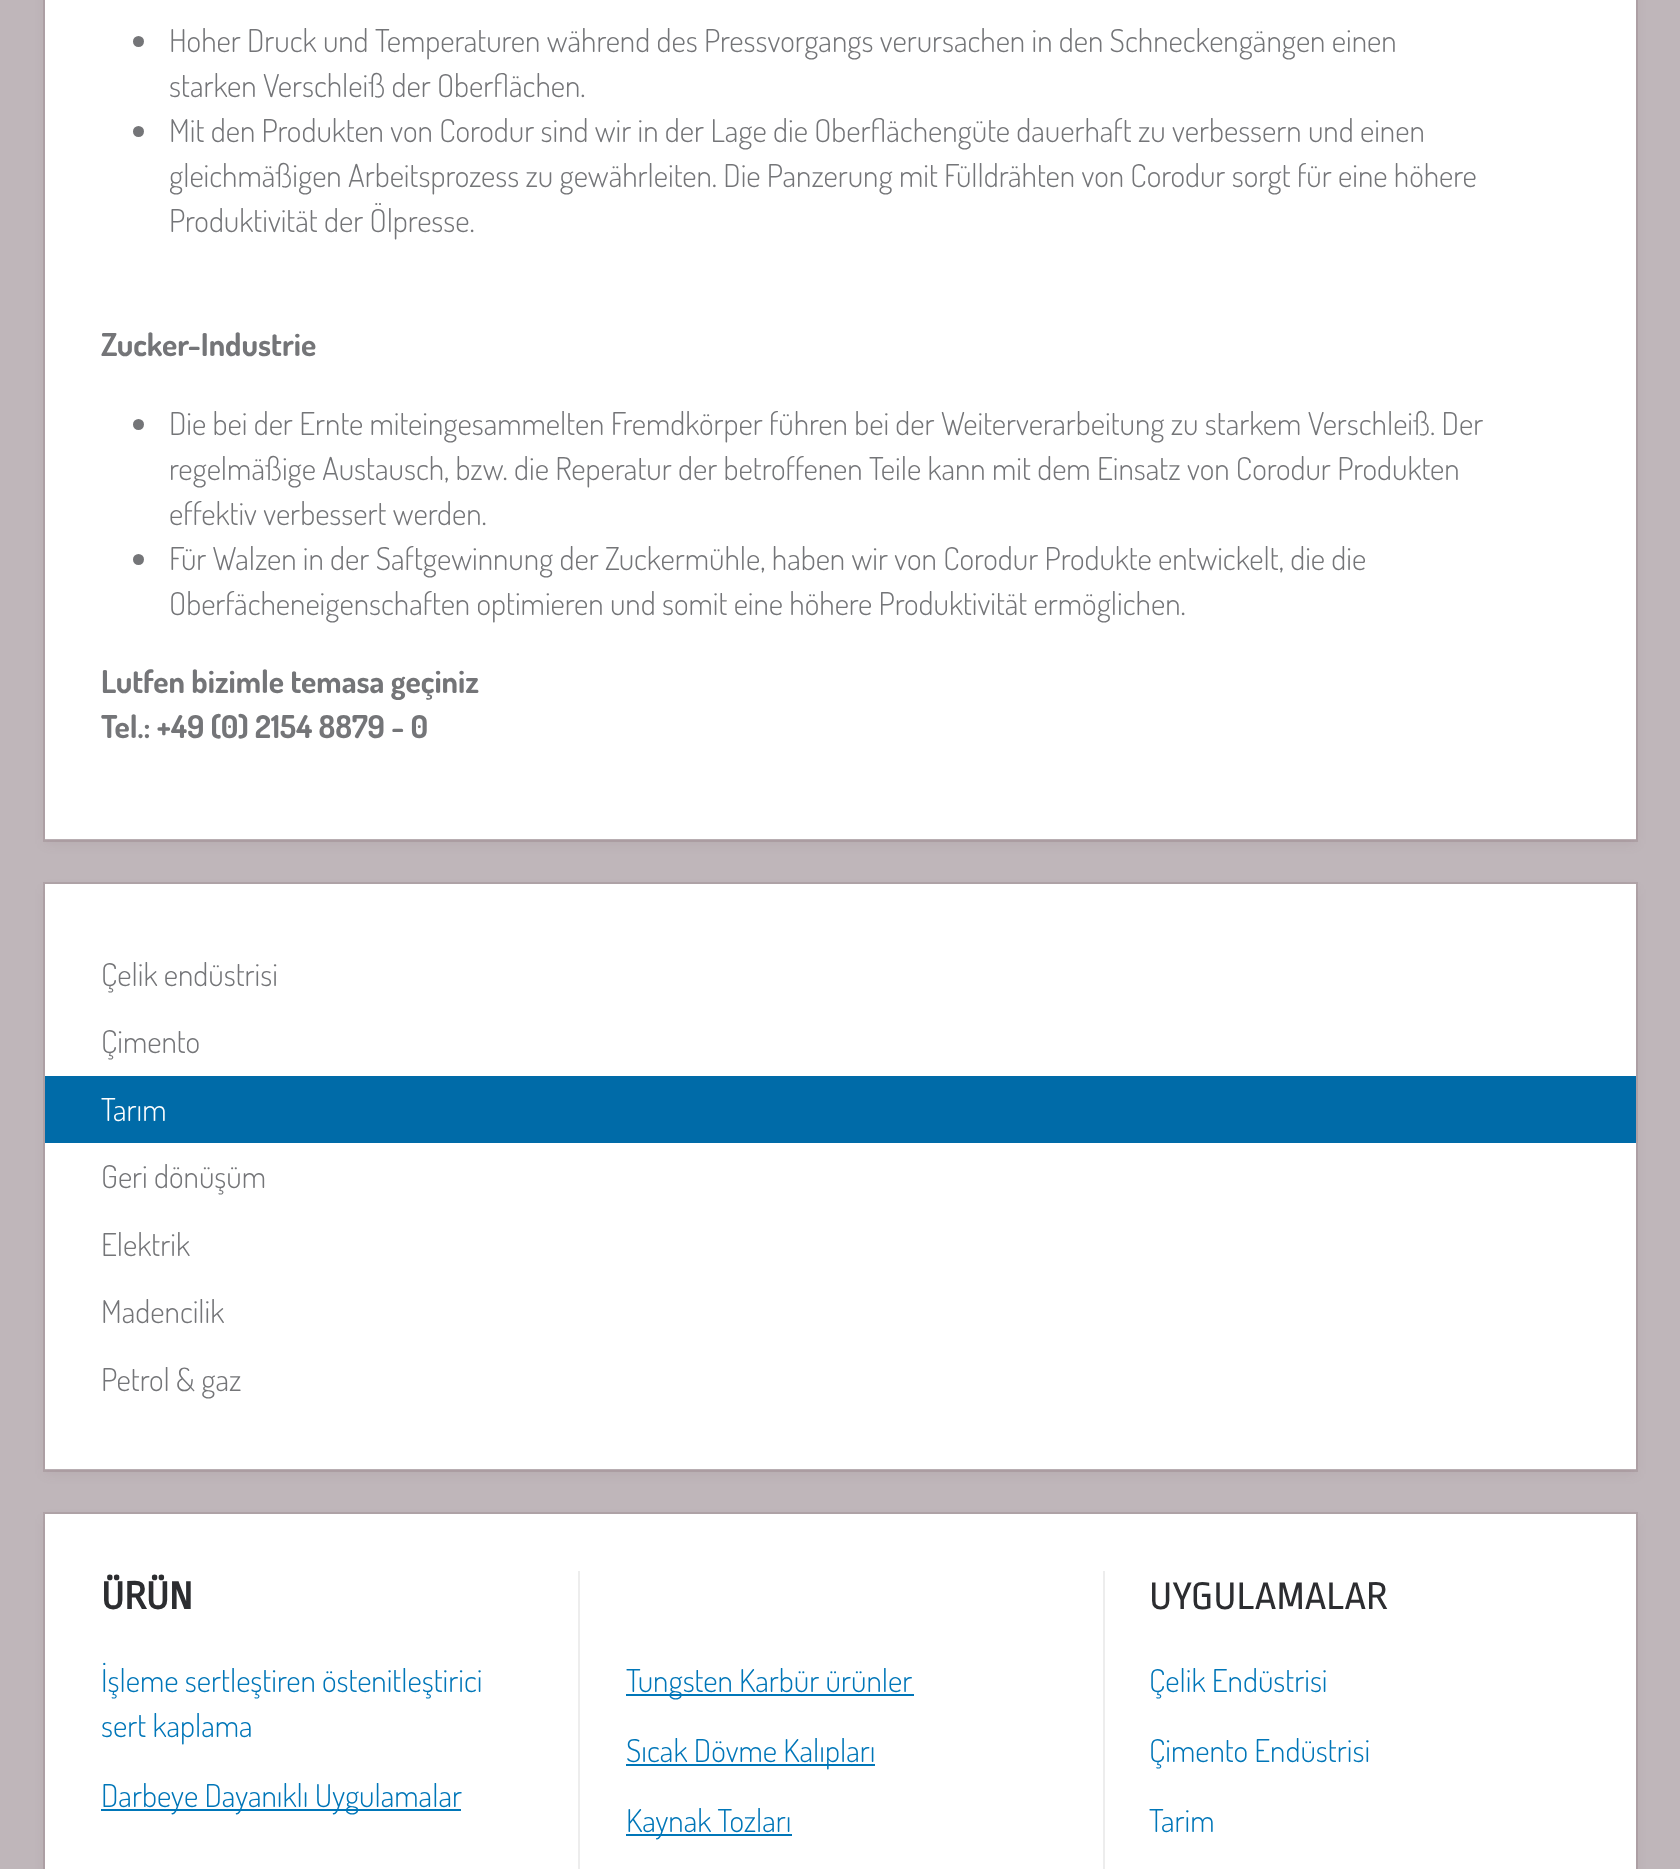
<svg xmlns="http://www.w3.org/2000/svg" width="1680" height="1869">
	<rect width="100%" height="100%" fill="#BFB6BA" />
	<rect x="45" y="-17" width="1591" height="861" fill="#624449" fill-opacity="0.09" filter="blur(5.5px)" />
	<rect x="44" y="-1" width="1593" height="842" fill="none" stroke="#624449" stroke-opacity="0.16" stroke-width="2" />
	<rect x="45" y="0" width="1591" height="839" fill="#FFFFFF" />
	<circle cx="138.5" cy="41.5" r="5.5" fill="#747578" />
	<g font-family="Dosis" font-size="31.5" font-weight="300" fill="#747578">
		<text x="169" y="52">Hoher Druck und Temperaturen während des Pressvorgangs verursachen in den Schneckengängen einen</text>
		<text x="169" y="97">starken Verschleiß der Oberflächen.</text>
	</g>
	<circle cx="138.5" cy="131.5" r="5.5" fill="#747578" />
	<g font-family="Dosis" font-size="31.5" font-weight="300" fill="#747578">
		<text x="169" y="142">Mit den Produkten von Corodur sind wir in der Lage die Oberflächengüte dauerhaft zu verbessern und einen</text>
		<text x="169" y="187">gleichmäßigen Arbeitsprozess zu gewährleiten. Die Panzerung mit Fülldrähten von Corodur sorgt für eine höhere</text>
		<text x="169" y="232">Produktivität der Ölpresse.</text>
	</g>
	<text x="101" y="356" font-family="Dosis" font-size="31.5" font-weight="700" fill="#747578">Zucker-Industrie</text>
	<circle cx="138.5" cy="424.5" r="5.5" fill="#747578" />
	<g font-family="Dosis" font-size="31.5" font-weight="300" fill="#747578">
		<text x="169" y="435">Die bei der Ernte miteingesammelten Fremdkörper führen bei der Weiterverarbeitung zu starkem Verschleiß. Der</text>
		<text x="169" y="480">regelmäßige Austausch, bzw. die Reperatur der betroffenen Teile kann mit dem Einsatz von Corodur Produkten</text>
		<text x="169" y="525">effektiv verbessert werden.</text>
	</g>
	<circle cx="138.5" cy="559.5" r="5.5" fill="#747578" />
	<g font-family="Dosis" font-size="31.5" font-weight="300" fill="#747578">
		<text x="169" y="570">Für Walzen in der Saftgewinnung der Zuckermühle, haben wir von Corodur Produkte entwickelt, die die</text>
		<text x="169" y="615">Oberfächeneigenschaften optimieren und somit eine höhere Produktivität ermöglichen.</text>
	</g>
	<g font-family="Dosis" font-size="31.5" font-weight="700" fill="#747578">
		<text x="101" y="693">Lutfen bizimle temasa geçiniz</text>
		<text x="101" y="738">Tel.: +49 (0) 2154 8879 - 0</text>
	</g>
	<rect x="45" y="889" width="1591" height="585" fill="#624449" fill-opacity="0.09" filter="blur(5.5px)" />
	<rect x="44" y="883" width="1593" height="588" fill="none" stroke="#624449" stroke-opacity="0.16" stroke-width="2" />
	<rect x="45" y="884" width="1591" height="585" fill="#FFFFFF" />
	<g font-family="Dosis" font-size="31.5" font-weight="300" fill="#747578">
		<text x="101" y="986">Çelik endüstrisi</text>
		<text x="101" y="1053">Çimento</text>
	</g>
	<rect x="45" y="1076" width="1591" height="67" fill="#006BA8" />
	<text x="101" y="1121" font-family="Dosis" font-size="31.5" font-weight="300" fill="#FFFFFF">Tarım</text>
	<g font-family="Dosis" font-size="31.5" font-weight="300" fill="#747578">
		<text x="101" y="1188">Geri dönüşüm</text>
		<text x="101" y="1256">Elektrik</text>
		<text x="101" y="1323">Madencilik</text>
		<text x="101" y="1391">Petrol &amp; gaz</text>
	</g>
	<rect x="45" y="1519" width="1591" height="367" fill="#624449" fill-opacity="0.09" filter="blur(5.5px)" />
	<rect x="44" y="1513" width="1593" height="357" fill="none" stroke="#624449" stroke-opacity="0.16" stroke-width="2" />
	<rect x="45" y="1514" width="1591" height="355" fill="#FFFFFF" />
	<text x="101" y="1609" font-family="Ropa Sans" font-size="40.5" font-weight="700" fill="#2C2D30">ÜRÜN</text>
	<g font-family="Dosis" font-size="31.5" font-weight="300" fill="#0076B8">
		<text x="101" y="1692">İşleme sertleştiren östenitleştirici</text>
		<text x="101" y="1737">sert kaplama</text>
	</g>
	<rect x="101" y="1809" width="360" height="2" fill="#0076B8" />
	<text x="101" y="1807" font-family="Dosis" font-size="31.5" font-weight="300" fill="#0076B8">Darbeye Dayanıklı Uygulamalar</text>
	<rect x="578" y="1571" width="2" height="298" fill="#EDEDED" />
	<rect x="626" y="1694" width="288" height="2" fill="#0076B8" />
	<text x="626" y="1692" font-family="Dosis" font-size="31.5" font-weight="300" fill="#0076B8">Tungsten Karbür ürünler</text>
	<rect x="626" y="1764" width="249" height="2" fill="#0076B8" />
	<text x="626" y="1762" font-family="Dosis" font-size="31.5" font-weight="300" fill="#0076B8">Sıcak Dövme Kalıpları</text>
	<rect x="626" y="1834" width="166" height="2" fill="#0076B8" />
	<text x="626" y="1832" font-family="Dosis" font-size="31.5" font-weight="300" fill="#0076B8">Kaynak Tozları</text>
	<rect x="1103" y="1571" width="2" height="298" fill="#EDEDED" />
	<text x="1149" y="1609" font-family="Ropa Sans" font-size="40.5" fill="#2C2D30">UYGULAMALAR</text>
	<g font-family="Dosis" font-size="31.5" font-weight="300" fill="#0076B8">
		<text x="1149" y="1692">Çelik Endüstrisi</text>
		<text x="1149" y="1762">Çimento Endüstrisi</text>
		<text x="1149" y="1832">Tarim</text>
	</g>
</svg>
